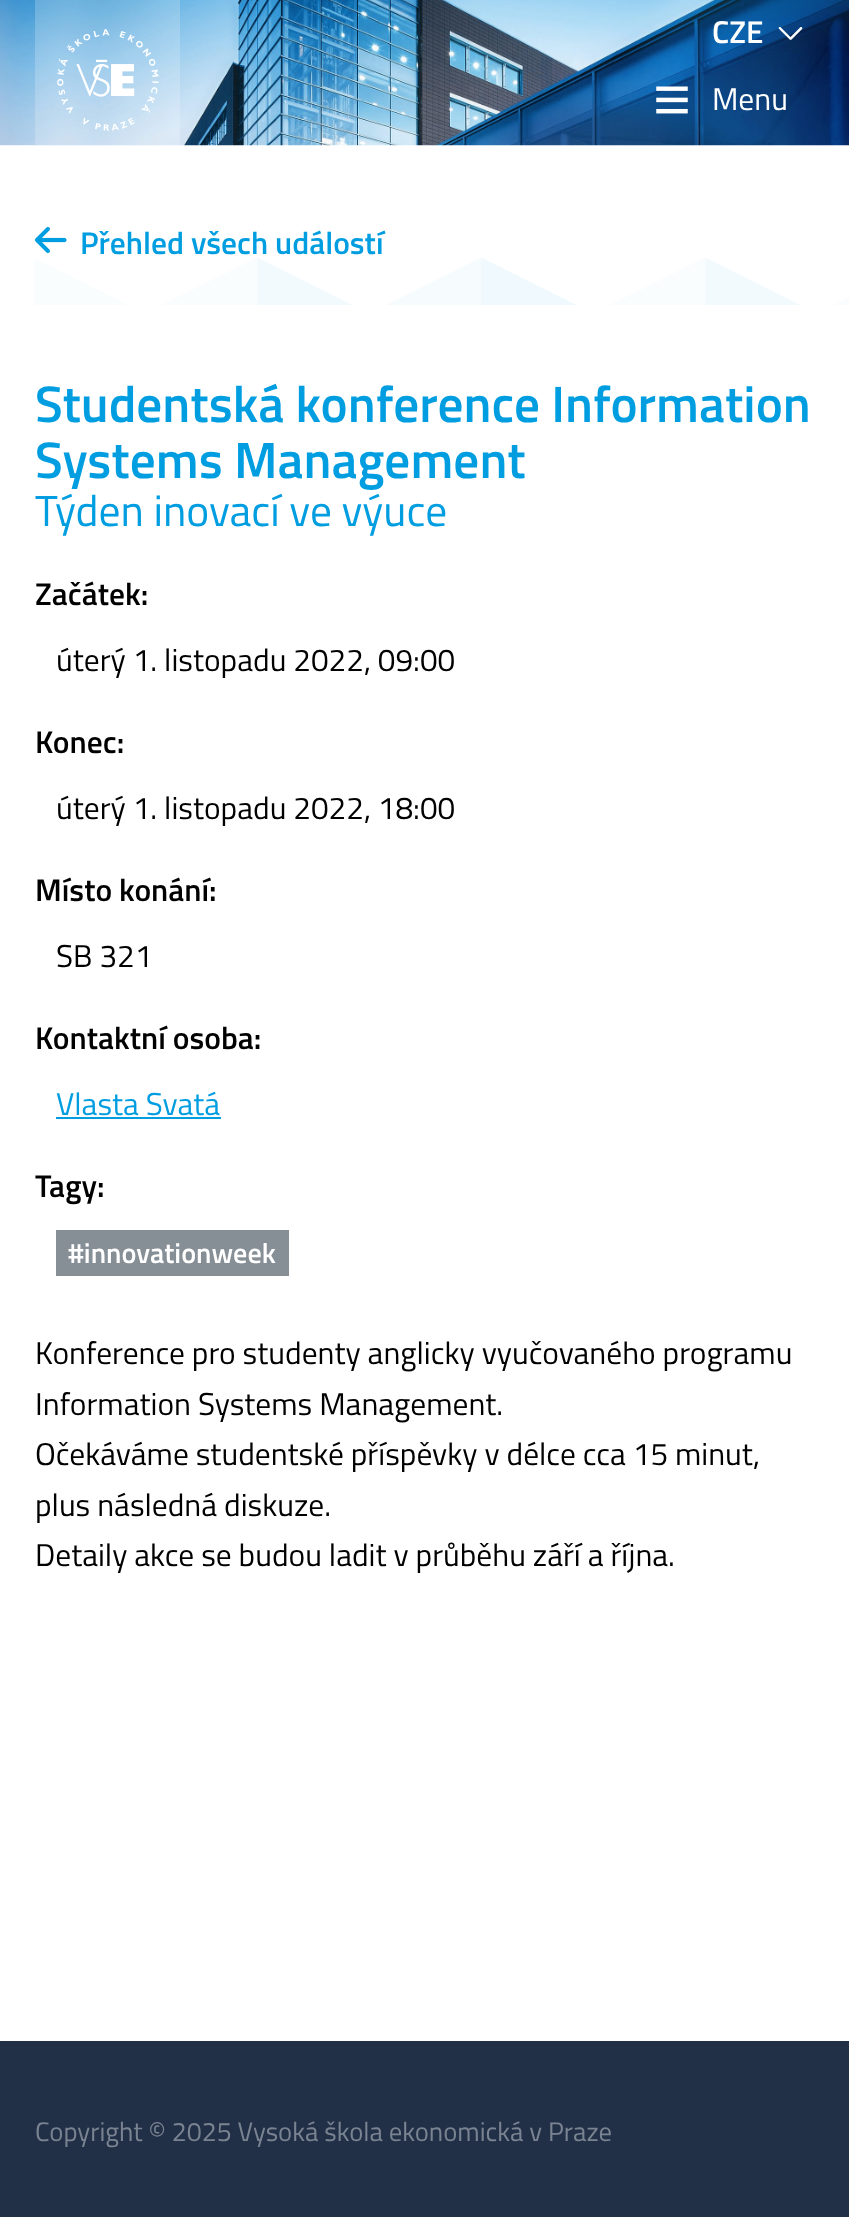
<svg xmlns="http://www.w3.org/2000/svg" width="849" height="2217">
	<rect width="100%" height="100%" fill="#FFFFFF" />
	<image x="0" y="0" width="849" height="146" href="assets/img1.png" />
	<rect x="35" y="0" width="145" height="145" fill="#FFFFFF" fill-opacity="0.2" />
	<image x="57" y="29" width="102" height="102" href="assets/img2.png" />
	<text x="712" y="43" font-family="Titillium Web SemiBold" font-size="31.5" font-weight="600" fill="#FFFFFF">CZE</text>
	<image x="778" y="27" width="25" height="13" href="assets/img3.png" />
	<image x="656" y="86" width="32" height="28" href="assets/img4.png" />
	<text x="712" y="110" font-family="Titillium Web" font-size="31.5" fill="#FFFFFF">Menu</text>
	<image x="34" y="258" width="815" height="47" href="assets/img5.png" />
	<image x="35" y="227" width="32" height="26" href="assets/img6.png" />
	<text x="80" y="254" font-family="Titillium Web SemiBold" font-size="31.5" font-weight="600" fill="#009EE0">Přehled všech událostí</text>
	<g font-family="Titillium Web SemiBold" font-size="51.25" font-weight="600" fill="#009EE0">
		<text x="35" y="422">Studentská konference Information</text>
		<text x="35" y="478">Systems Management</text>
	</g>
	<text x="35" y="526" font-family="Titillium Web" font-size="43.5" fill="#009EE0">Týden inovací ve výuce</text>
	<text x="35" y="605" font-family="Titillium Web SemiBold" font-size="31.5" font-weight="600" fill="#000000">Začátek:</text>
	<text x="56" y="671" font-family="Titillium Web" font-size="31.5" fill="#000000">úterý 1. listopadu 2022, 09:00</text>
	<text x="35" y="753" font-family="Titillium Web SemiBold" font-size="31.5" font-weight="600" fill="#000000">Konec:</text>
	<text x="56" y="819" font-family="Titillium Web" font-size="31.5" fill="#000000">úterý 1. listopadu 2022, 18:00</text>
	<text x="35" y="901" font-family="Titillium Web SemiBold" font-size="31.5" font-weight="600" fill="#000000">Místo konání:</text>
	<text x="56" y="967" font-family="Titillium Web" font-size="31.5" fill="#000000">SB 321</text>
	<text x="35" y="1049" font-family="Titillium Web SemiBold" font-size="31.5" font-weight="600" fill="#000000">Kontaktní osoba:</text>
	<text x="56" y="1115" font-family="Titillium Web" font-size="31.5" fill="#009EE0">Vlasta Svatá</text>
	<rect x="56" y="1117" width="165" height="2" fill="#009EE0" />
	<text x="35" y="1197" font-family="Titillium Web SemiBold" font-size="31.5" font-weight="600" fill="#000000">Tagy:</text>
	<rect x="56" y="1230" width="233" height="46" fill="#868E96" />
	<text x="68" y="1263" font-family="Titillium Web SemiBold" font-size="28.25" font-weight="600" fill="#FFFFFF">#innovationweek</text>
	<g font-family="Titillium Web" font-size="31.5" fill="#000000">
		<text x="35" y="1364">Konference pro studenty anglicky vyučovaného programu</text>
		<text x="35" y="1415">Information Systems Management.</text>
		<text x="35" y="1465">Očekáváme studentské příspěvky v délce cca 15 minut,</text>
		<text x="35" y="1516">plus následná diskuze.</text>
		<text x="35" y="1566">Detaily akce se budou ladit v průběhu září a října.</text>
	</g>
	<rect x="0" y="2041" width="849" height="176" fill="#223047" />
	<text x="35" y="2141" font-family="Titillium Web" font-size="26.75" fill="#7A8391">Copyright © 2025 Vysoká škola ekonomická v Praze</text>
</svg>
